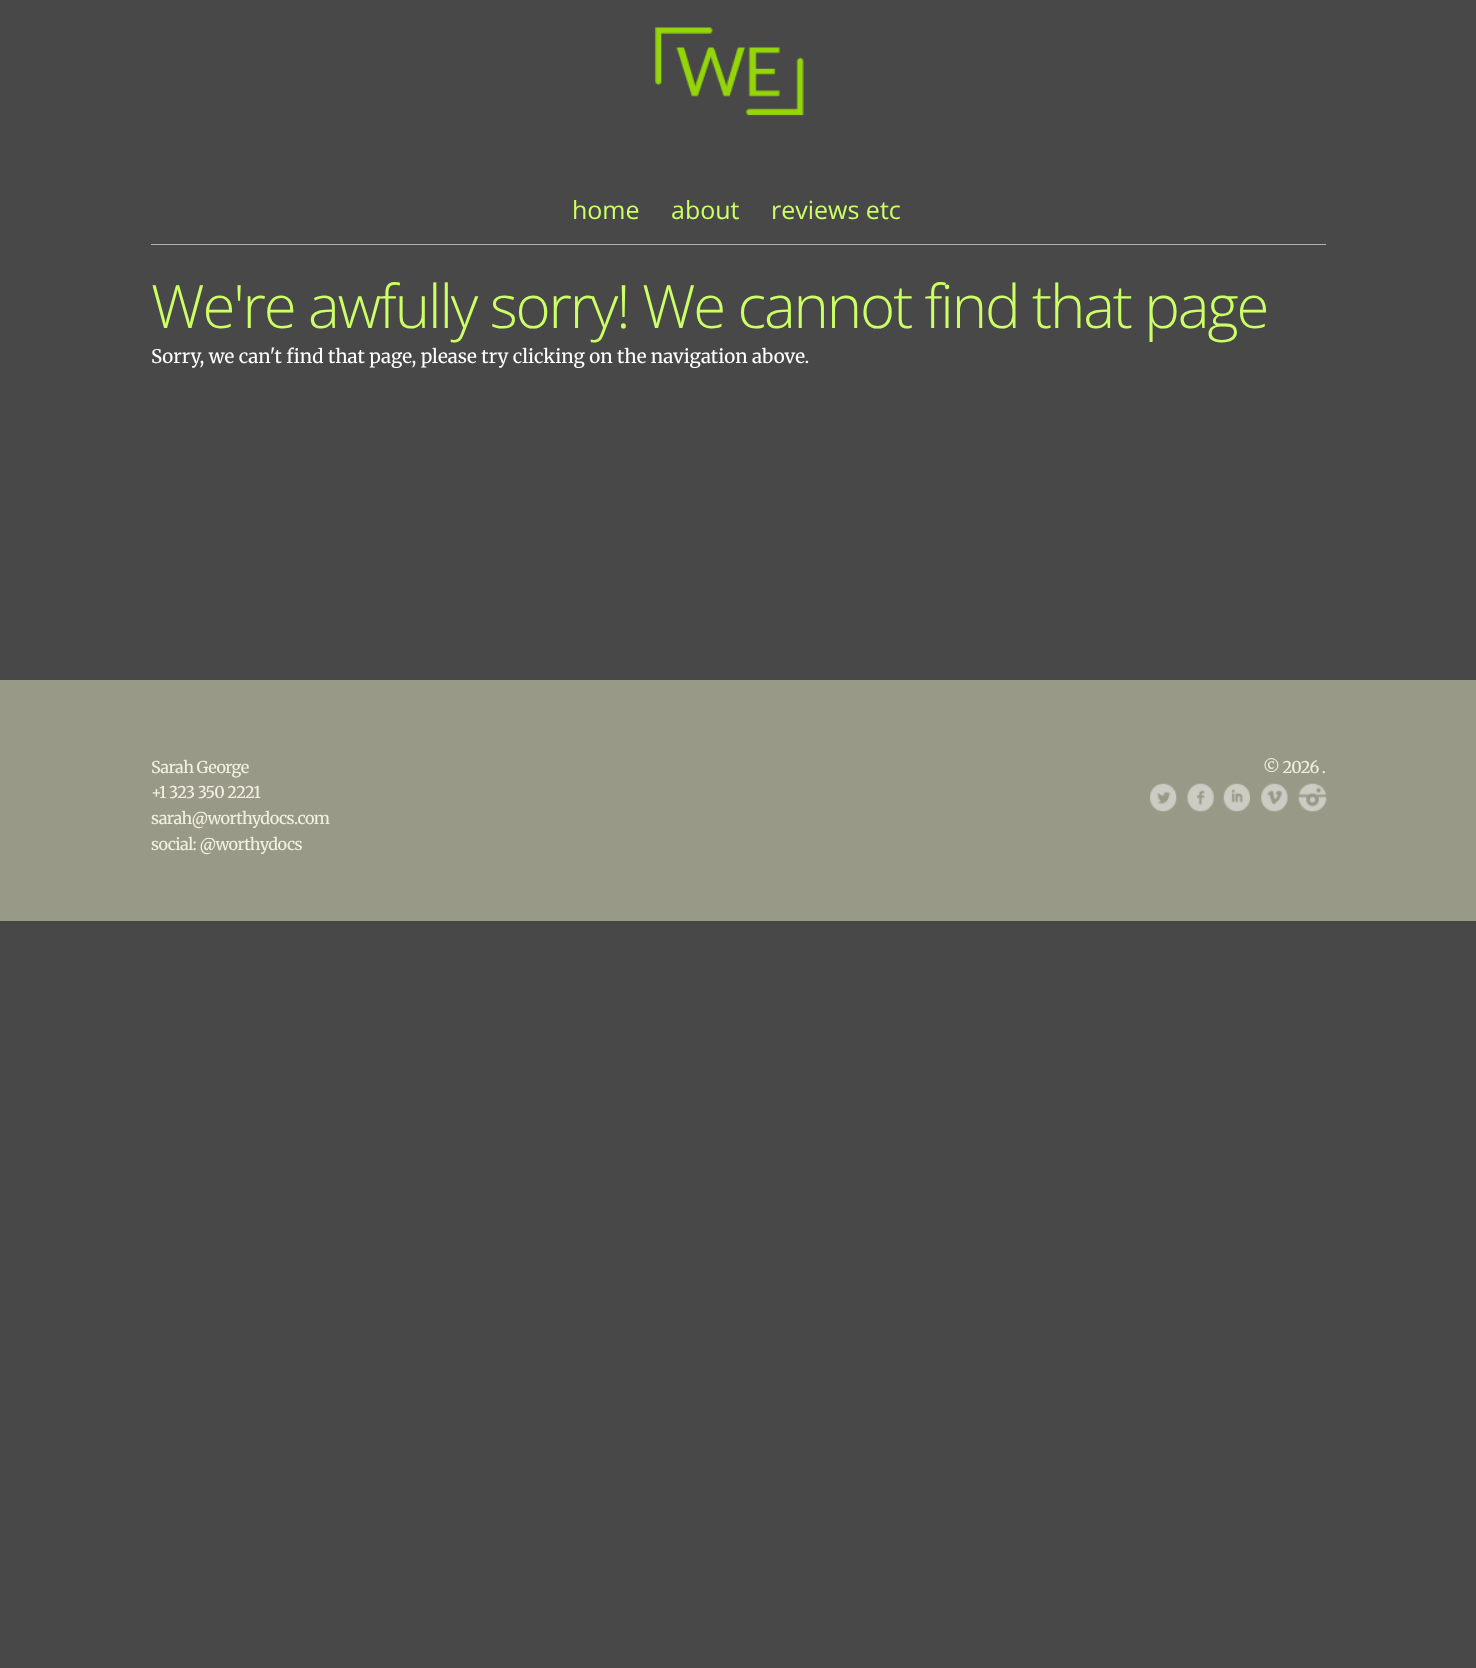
<svg xmlns="http://www.w3.org/2000/svg" width="1476" height="1668">
	<rect width="100%" height="100%" fill="#474847" />
	<rect x="151" y="244" width="1175" height="1" fill="#B3B2A9" />
	<image x="654" y="27" width="150" height="89" href="assets/img1.png" />
	<g font-family="Open Sans" font-size="25" fill="#CCFF66">
		<text x="572" y="219">home</text>
		<text x="671" y="219">about</text>
		<text x="771" y="219">reviews etc</text>
	</g>
	<text x="151" y="328" font-family="Open Sans" font-size="60" font-weight="300" letter-spacing="-2.15" fill="#CCFF66">We're awfully sorry! We cannot find that page</text>
	<text x="151" y="363" font-family="Merriweather" font-size="18.75" fill="#FFFFFF">Sorry, we can't find that page, please try clicking on the navigation above.</text>
	<rect x="0" y="680" width="1476" height="241" fill="#999988" />
	<g font-family="Merriweather" font-size="16.25" font-weight="500" letter-spacing="-0.6" fill="#F1EFE1">
		<text x="151" y="773">Sarah George</text>
		<text x="151" y="798">+1 323 350 2221</text>
		<text x="151" y="824">sarah@worthydocs.com</text>
		<text x="151" y="850">social: @worthydocs</text>
		<text x="1263" y="773">© 2026 .</text>
	</g>
	<image x="1150" y="783" width="27" height="29" href="assets/img2.png" />
	<image x="1187" y="783" width="27" height="29" href="assets/img3.png" />
	<image x="1223" y="783" width="27" height="29" href="assets/img4.png" />
	<image x="1261" y="783" width="27" height="29" href="assets/img5.png" />
	<image x="1298" y="783" width="29" height="29" href="assets/img6.png" />
</svg>
